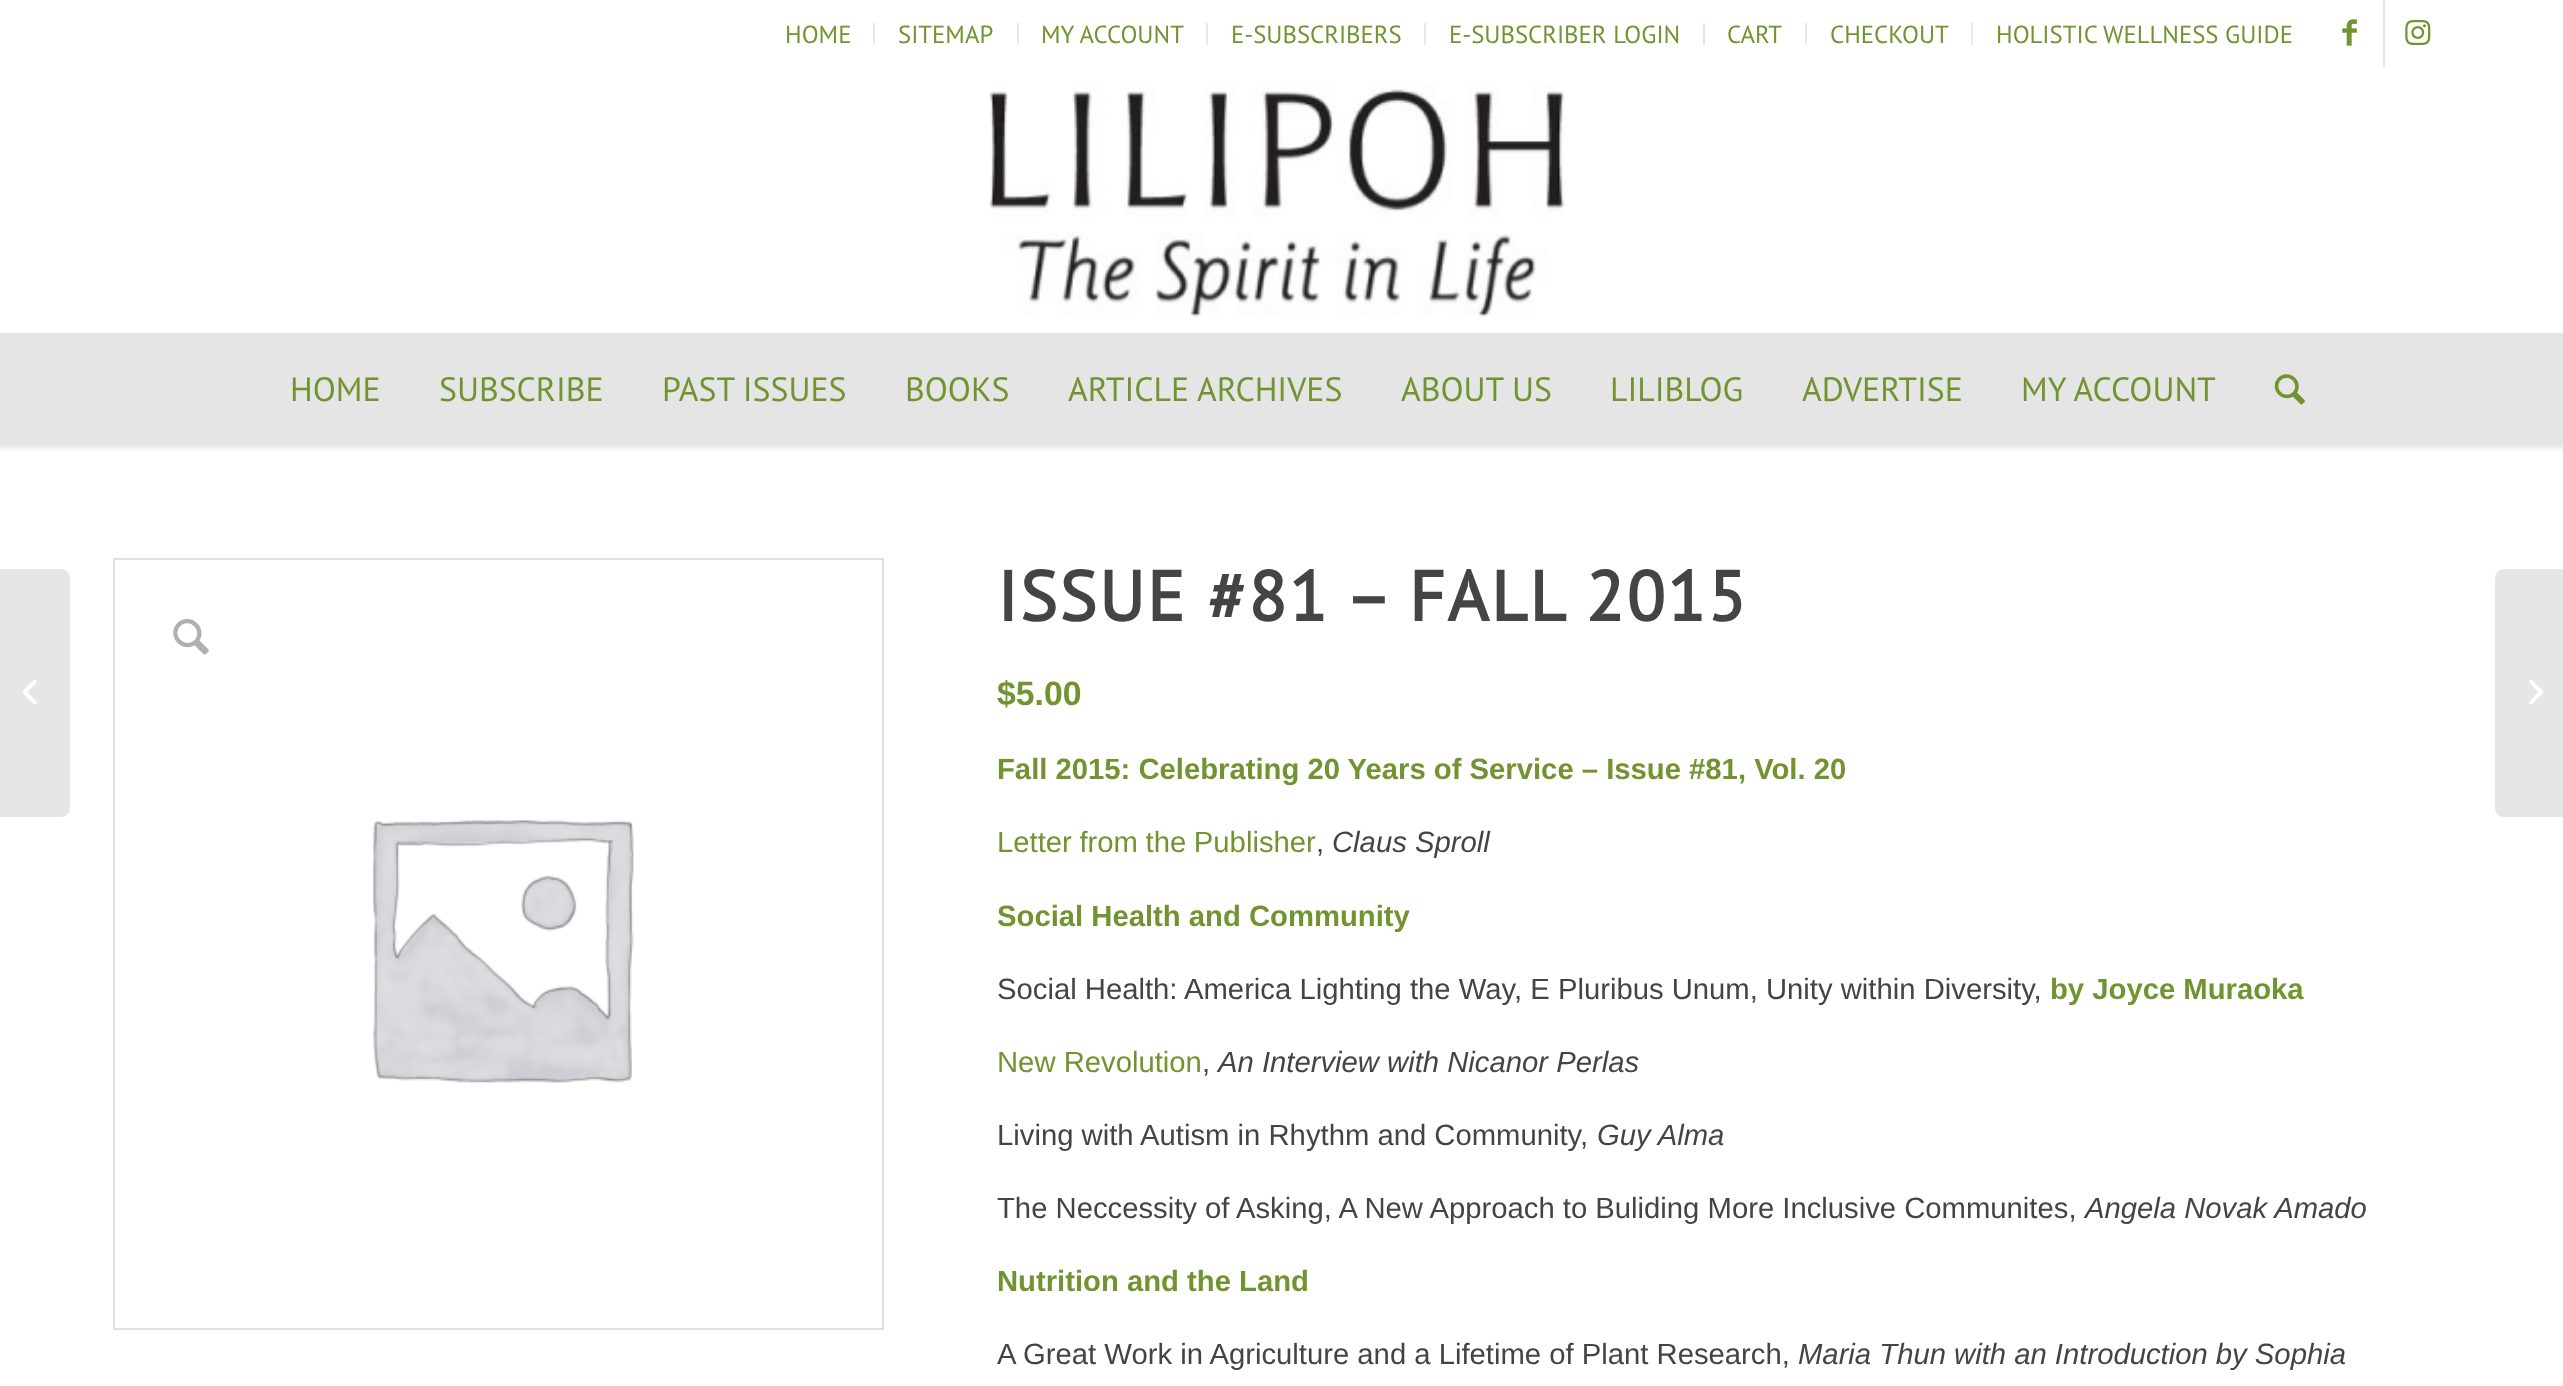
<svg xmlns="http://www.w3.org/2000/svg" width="2563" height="1386">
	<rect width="100%" height="100%" fill="#FFFFFF" />
	<rect x="-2" y="-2" width="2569" height="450" fill="#000000" fill-opacity="0.1" filter="blur(2px)" />
	<rect x="0" y="0" width="2563" height="333" fill="#FFFFFF" />
	<rect x="873" y="23" width="2" height="22" fill="#E8E8E8" />
	<text x="785" y="43" font-family="PT Sans" font-size="24.75" fill="#719430">HOME</text>
	<rect x="1017" y="23" width="2" height="22" fill="#E8E8E8" />
	<text x="898" y="43" font-family="PT Sans" font-size="24.75" fill="#719430">SITEMAP</text>
	<rect x="1206" y="23" width="2" height="22" fill="#E8E8E8" />
	<text x="1041" y="43" font-family="PT Sans" font-size="24.75" fill="#719430">MY ACCOUNT</text>
	<rect x="1424" y="23" width="2" height="22" fill="#E8E8E8" />
	<text x="1231" y="43" font-family="PT Sans" font-size="24.75" fill="#719430">E-SUBSCRIBERS</text>
	<rect x="1703" y="23" width="2" height="22" fill="#E8E8E8" />
	<text x="1449" y="43" font-family="PT Sans" font-size="24.75" fill="#719430">E-SUBSCRIBER LOGIN</text>
	<rect x="1805" y="23" width="2" height="22" fill="#E8E8E8" />
	<text x="1727" y="43" font-family="PT Sans" font-size="24.75" fill="#719430">CART</text>
	<rect x="1971" y="23" width="2" height="22" fill="#E8E8E8" />
	<g font-family="PT Sans" font-size="24.75" fill="#719430">
		<text x="1830" y="43">CHECKOUT</text>
		<text x="1996" y="43">HOLISTIC WELLNESS GUIDE</text>
	</g>
	<rect x="2383" y="0" width="2" height="68" fill="#E8E8E8" />
	<image x="2342" y="19" width="15" height="27" href="assets/img1.png" />
	<image x="2405" y="20" width="26" height="26" href="assets/img2.png" />
	<image x="989" y="86" width="576" height="231" href="assets/img3.png" />
	<g font-family="PT Sans" font-size="33.75" fill="#719430">
		<text x="290" y="401">HOME</text>
		<text x="439" y="401">SUBSCRIBE</text>
		<text x="662" y="401">PAST ISSUES</text>
		<text x="905" y="401">BOOKS</text>
		<text x="1068" y="401">ARTICLE ARCHIVES</text>
		<text x="1401" y="401">ABOUT US</text>
		<text x="1610" y="401">LILIBLOG</text>
		<text x="1802" y="401">ADVERTISE</text>
		<text x="2021" y="401">MY ACCOUNT</text>
	</g>
	<image x="2274" y="374" width="31" height="31" href="assets/img4.png" />
	<path d="M0 569H61C66 569 70 573 70 578V808C70 813 66 817 61 817H0Z" fill="#E6E6E6" />
	<image x="22" y="679" width="15" height="26" href="assets/img5.png" />
	<rect x="114" y="559" width="769" height="770" fill="none" stroke="#E1E1E1" stroke-width="2" />
	<image x="372" y="819" width="262" height="264" href="assets/img6.png" />
	<image x="173" y="619" width="36" height="36" href="assets/img7.png" />
	<text x="997" y="621" font-family="PT Sans" font-size="70.25" font-weight="700" letter-spacing="2.25" fill="#444444">ISSUE #81 – FALL 2015</text>
	<text x="997" y="705" font-family="Liberation Sans" font-size="33.75" font-weight="700" fill="#719430">$5.00</text>
	<text x="997" y="779" font-family="Liberation Sans" font-size="29.25" font-weight="700" fill="#719430">Fall 2015: Celebrating 20 Years of Service – Issue #81, Vol. 20</text>
	<text x="997" y="852" word-spacing="-0.5" font-family="Liberation Sans" font-size="29.25" fill="#719430">Letter from the Publisher</text>
	<text x="1316" y="852" font-family="Liberation Sans" font-size="29.25" fill="#444444">,</text>
	<text x="1332" y="852" font-family="Liberation Sans" font-size="29.25" font-style="italic" fill="#444444">Claus Sproll</text>
	<text x="997" y="926" font-family="Liberation Sans" font-size="29.25" font-weight="700" fill="#719430">Social Health and Community</text>
	<text x="997" y="999" font-family="Liberation Sans" font-size="29.25" fill="#444444">Social Health: America Lighting the Way, E Pluribus Unum, Unity within Diversity,</text>
	<text x="2050" y="999" font-family="Liberation Sans" font-size="29.25" font-weight="700" fill="#719430">by Joyce Muraoka</text>
	<text x="997" y="1072" font-family="Liberation Sans" font-size="29.25" fill="#719430">New Revolution</text>
	<text x="1202" y="1072" font-family="Liberation Sans" font-size="29.25" fill="#444444">,</text>
	<text x="1218" y="1072" font-family="Liberation Sans" font-size="29.25" font-style="italic" fill="#444444">An Interview with Nicanor Perlas</text>
	<text x="997" y="1145" font-family="Liberation Sans" font-size="29.25" fill="#444444">Living with Autism in Rhythm and Community,</text>
	<text x="1597" y="1145" font-family="Liberation Sans" font-size="29.25" font-style="italic" fill="#444444">Guy Alma</text>
	<text x="997" y="1218" font-family="Liberation Sans" font-size="29.25" fill="#444444">The Neccessity of Asking, A New Approach to Buliding More Inclusive Communites,</text>
	<text x="2085" y="1218" font-family="Liberation Sans" font-size="29.25" font-style="italic" fill="#444444">Angela Novak Amado</text>
	<text x="997" y="1291" font-family="Liberation Sans" font-size="29.25" font-weight="700" fill="#719430">Nutrition and the Land</text>
	<text x="997" y="1364" font-family="Liberation Sans" font-size="29.25" fill="#444444">A Great Work in Agriculture and a Lifetime of Plant Research,</text>
	<text x="1798" y="1364" font-family="Liberation Sans" font-size="29.25" font-style="italic" fill="#444444">Maria Thun with an Introduction by Sophia</text>
	<path d="M2504 569H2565V817H2504C2499 817 2495 813 2495 808V578C2495 573 2499 569 2504 569Z" fill="#E6E6E6" />
	<image x="2529" y="679" width="15" height="26" href="assets/img8.png" />
</svg>
